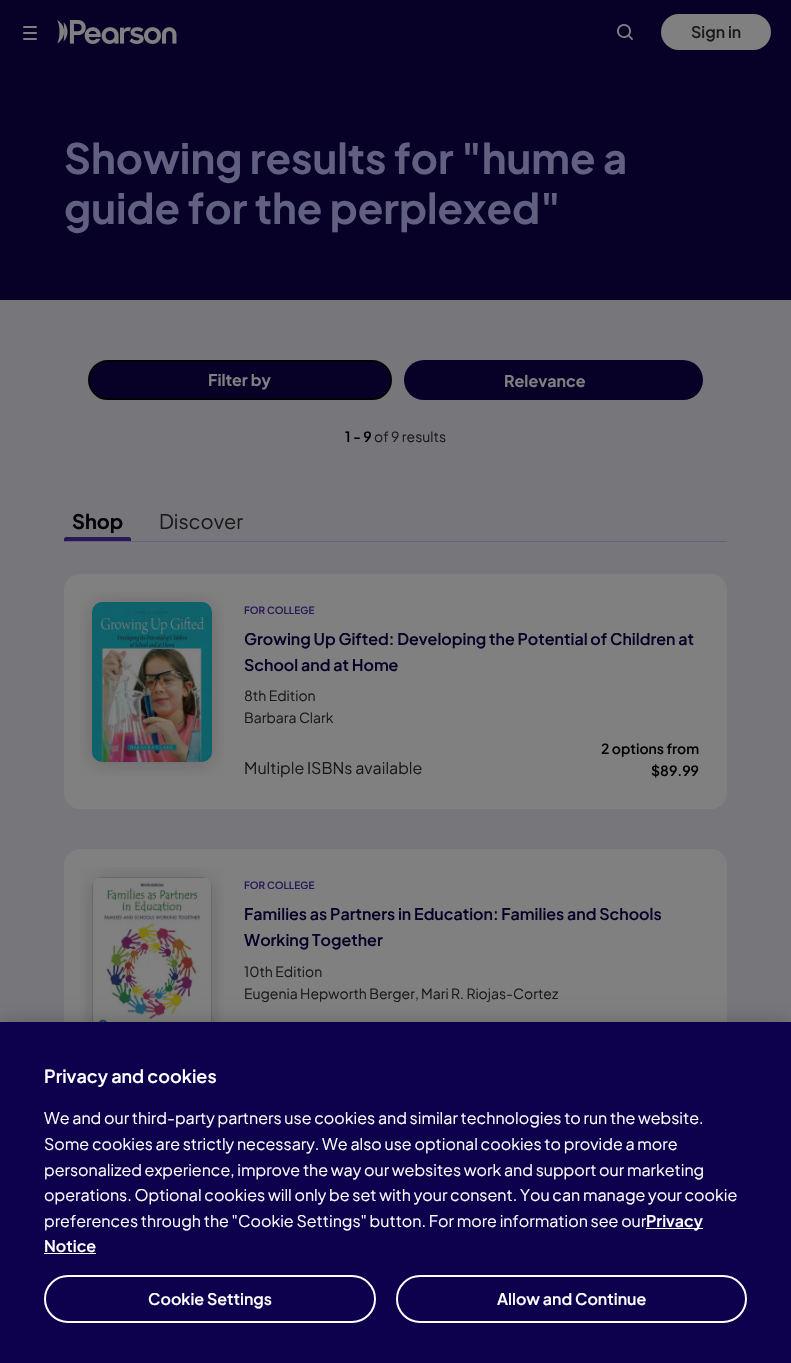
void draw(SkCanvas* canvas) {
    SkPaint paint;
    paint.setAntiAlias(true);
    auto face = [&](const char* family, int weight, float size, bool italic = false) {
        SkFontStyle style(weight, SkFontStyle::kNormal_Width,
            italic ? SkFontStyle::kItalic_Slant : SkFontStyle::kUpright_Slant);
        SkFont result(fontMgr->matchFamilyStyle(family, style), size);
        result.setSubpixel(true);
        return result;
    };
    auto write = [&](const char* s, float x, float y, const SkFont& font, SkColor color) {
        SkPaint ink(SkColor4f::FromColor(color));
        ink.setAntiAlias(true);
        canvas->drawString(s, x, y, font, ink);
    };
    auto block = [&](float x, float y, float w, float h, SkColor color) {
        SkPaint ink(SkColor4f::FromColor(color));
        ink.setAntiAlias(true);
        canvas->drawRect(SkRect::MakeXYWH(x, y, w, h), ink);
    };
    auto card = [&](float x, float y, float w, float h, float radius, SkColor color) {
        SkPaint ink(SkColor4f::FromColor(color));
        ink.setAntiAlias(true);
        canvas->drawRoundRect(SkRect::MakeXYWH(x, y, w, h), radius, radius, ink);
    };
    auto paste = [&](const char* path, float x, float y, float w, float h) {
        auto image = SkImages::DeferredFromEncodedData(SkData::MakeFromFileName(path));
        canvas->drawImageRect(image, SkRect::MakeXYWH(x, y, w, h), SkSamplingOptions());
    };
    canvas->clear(SkColorSetRGB(119, 118, 123));
    block(0, 0, 791, 300, SkColorSetRGB(7, 0, 39));
    card(23, 32, 14, 2, 1, SkColorSetRGB(128, 128, 128));
    card(23, 26, 14, 2, 1, SkColorSetRGB(128, 128, 128));
    card(23, 38, 14, 2, 1, SkColorSetRGB(128, 128, 128));
    paste("pic1.png", 57, 20, 120, 24);
    paste("pic2.png", 617, 24, 16, 16);
    card(661, 14, 110, 36, 18, SkColorSetRGB(128, 128, 128));
    auto kFont1 = face("Plus Jakarta Sans", 600, 16);
    write("Sign in", 691, 38, kFont1, SkColorSetRGB(26, 26, 26));
    auto kFont2 = face("Plus Jakarta Sans", 700, 41.75f);
    write("Showing results for \"hume a", 64, 174, kFont2, SkColorSetRGB(97, 96, 128));
    write("guide for the perplexed\"", 64, 224, kFont2, SkColorSetRGB(97, 96, 128));
    paint.setColor(SkColorSetRGB(7, 0, 39));
    canvas->drawRoundRect(SkRect::MakeXYWH(89, 361, 302, 38), 19, 19, paint);
    paint.setStyle(SkPaint::kStroke_Style);
    paint.setStrokeWidth(2);
    paint.setColor(SkColorSetRGB(3, 3, 5));
    canvas->drawRoundRect(SkRect::MakeXYWH(89, 361, 302, 38), 19, 19, paint);
    auto kFont3 = face("Plus Jakarta Sans", 700, 16);
    write("Filter by", 208, 386, kFont3, SkColorSetRGB(128, 128, 128));
    card(404, 360, 299, 40, 20, SkColorSetRGB(7, 0, 39));
    write("Relevance", 504, 387, kFont3, SkColorSetRGB(128, 128, 128));
    auto kFont4 = face("Plus Jakarta Sans", 600, 14);
    write("1 - 9", 345, 442, kFont4, SkColorSetRGB(3, 3, 5));
    auto kFont5 = face("Plus Jakarta Sans", 400, 14);
    write("of 9 results", 374, 442, kFont5, SkColorSetRGB(26, 26, 26));
    block(64, 541, 663, 1, SkColorSetRGB(97, 96, 128));
    auto kFont6 = face("Plus Jakarta Sans", 700, 20);
    write("Shop", 72, 529, kFont6, SkColorSetRGB(3, 3, 5));
    paint.setStyle(SkPaint::kFill_Style);
    paint.setColor(SkColorSetRGB(41, 23, 86));
    canvas->drawPath(SkPathBuilder().moveTo(66, 537).lineTo(129, 537).cubicTo(130, 537, 131, 538, 131, 539).lineTo(131, 541).lineTo(64, 541).lineTo(64, 539).cubicTo(64, 538, 65, 537, 66, 537).close().detach(), paint);
    auto kFont7 = face("Plus Jakarta Sans", 400, 20);
    write("Discover", 159, 529, kFont7, SkColorSetRGB(26, 26, 26));
    card(64, 574, 663, 235, 16, SkColorSetRGB(128, 128, 128));
    paste("pic3.png", 80, 592, 144, 184);
    auto kFont8 = face("Plus Jakarta Sans", 600, 10);
    write("FOR COLLEGE", 244, 614, kFont8, SkColorSetRGB(41, 23, 86));
    write("Growing Up Gifted: Developing the Potential of Children at", 244, 645, kFont1, SkColorSetRGB(7, 0, 39));
    write("School and at Home", 244, 671, kFont1, SkColorSetRGB(7, 0, 39));
    write("8th Edition", 244, 701, kFont5, SkColorSetRGB(26, 26, 26));
    write("Barbara Clark", 244, 723, kFont5, SkColorSetRGB(26, 26, 26));
    auto kFont9 = face("Plus Jakarta Sans", 400, 16);
    write("Multiple ISBNs available", 244, 774, kFont9, SkColorSetRGB(26, 26, 26));
    write("2 options from", 601, 754, kFont4, SkColorSetRGB(3, 3, 5));
    write("$89.99", 651, 776, kFont4, SkColorSetRGB(3, 3, 5));
    card(64, 849, 663, 236, 16, SkColorSetRGB(128, 128, 128));
    paste("pic4.png", 80, 867, 144, 155);
    write("FOR COLLEGE", 244, 889, kFont8, SkColorSetRGB(41, 23, 86));
    write("Families as Partners in Education: Families and Schools", 244, 920, kFont1, SkColorSetRGB(7, 0, 39));
    write("Working Together", 244, 946, kFont1, SkColorSetRGB(7, 0, 39));
    write("10th Edition", 244, 977, kFont5, SkColorSetRGB(26, 26, 26));
    write("Eugenia Hepworth Berger, Mari R. Riojas-Cortez", 244, 999, kFont5, SkColorSetRGB(26, 26, 26));
    paint.setColor(SkColorSetARGB(51, 0, 0, 0));
    paint.setMaskFilter(SkMaskFilter::MakeBlur(kNormal_SkBlurStyle, 9));
    canvas->drawRect(SkRect::MakeXYWH(0, 1022, 791, 341), paint);
    paint.setMaskFilter(nullptr);
    block(0, 1022, 791, 341, SkColorSetRGB(13, 0, 77));
    auto kFont10 = face("Plus Jakarta Sans", 600, 18);
    write("Privacy and cookies", 44, 1083, kFont10, SK_ColorWHITE);
    write("We and our third-party partners use cookies and similar technologies to run the website.", 44, 1124, kFont9, SK_ColorWHITE);
    write("Some cookies are strictly necessary. We also use optional cookies to provide a more", 44, 1150, kFont9, SK_ColorWHITE);
    write("personalized experience, improve the way our websites work and support our marketing", 44, 1176, kFont9, SK_ColorWHITE);
    write("operations. Optional cookies will only be set with your consent. You can manage your cookie", 44, 1201, kFont9, SK_ColorWHITE);
    write("preferences through the \"Cookie Settings\" button. For more information see our", 44, 1227, kFont9, SK_ColorWHITE);
    block(646, 1228, 57, 1, SkColorSetRGB(254, 254, 254));
    write("Privacy", 646, 1227, kFont1, SK_ColorWHITE);
    write("Notice", 44, 1252, kFont1, SK_ColorWHITE);
    block(44, 1253, 52, 1, SkColorSetRGB(254, 254, 254));
    paint.setStyle(SkPaint::kStroke_Style);
    paint.setColor(SK_ColorWHITE);
    canvas->drawRoundRect(SkRect::MakeXYWH(45, 1276, 330, 46), 23, 23, paint);
    write("Cookie Settings", 148, 1305, kFont1, SK_ColorWHITE);
    canvas->drawRoundRect(SkRect::MakeXYWH(397, 1276, 349, 46), 23, 23, paint);
    write("Allow and Continue", 497, 1305, kFont1, SK_ColorWHITE);
}
